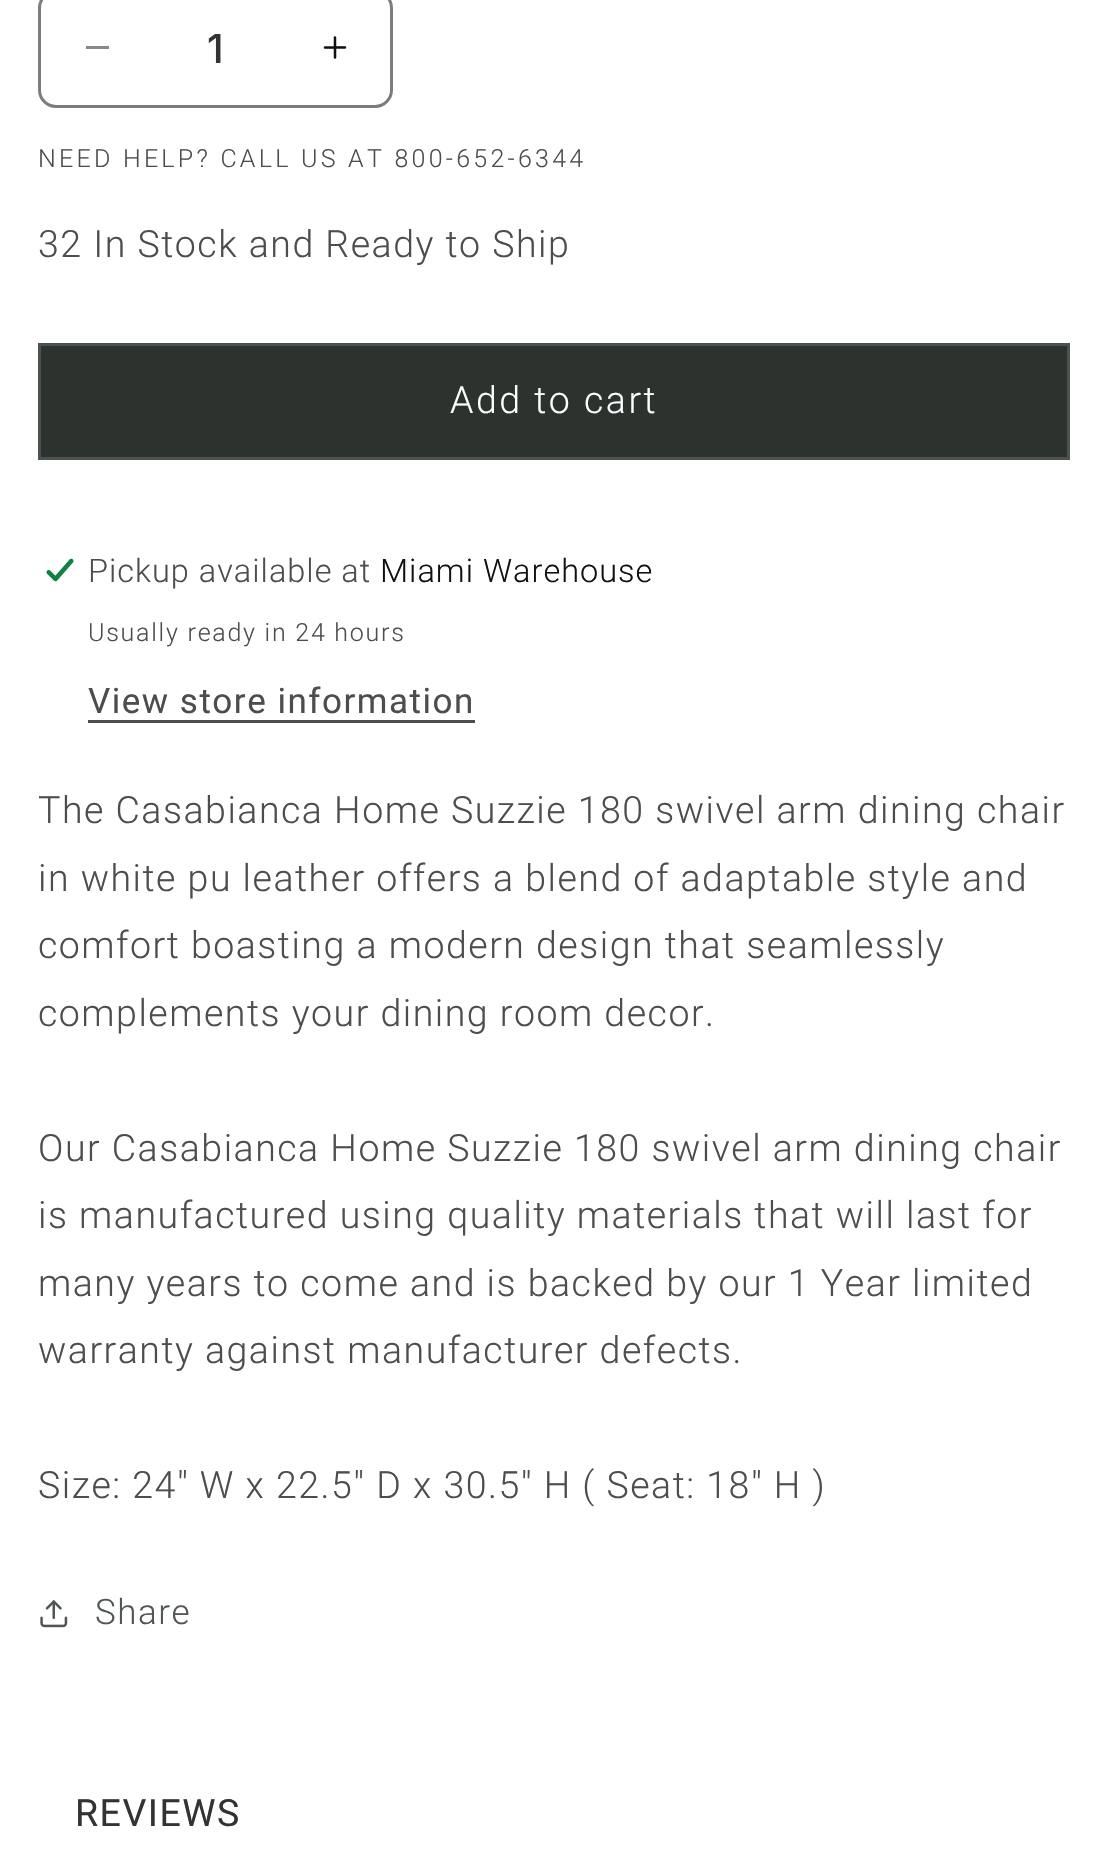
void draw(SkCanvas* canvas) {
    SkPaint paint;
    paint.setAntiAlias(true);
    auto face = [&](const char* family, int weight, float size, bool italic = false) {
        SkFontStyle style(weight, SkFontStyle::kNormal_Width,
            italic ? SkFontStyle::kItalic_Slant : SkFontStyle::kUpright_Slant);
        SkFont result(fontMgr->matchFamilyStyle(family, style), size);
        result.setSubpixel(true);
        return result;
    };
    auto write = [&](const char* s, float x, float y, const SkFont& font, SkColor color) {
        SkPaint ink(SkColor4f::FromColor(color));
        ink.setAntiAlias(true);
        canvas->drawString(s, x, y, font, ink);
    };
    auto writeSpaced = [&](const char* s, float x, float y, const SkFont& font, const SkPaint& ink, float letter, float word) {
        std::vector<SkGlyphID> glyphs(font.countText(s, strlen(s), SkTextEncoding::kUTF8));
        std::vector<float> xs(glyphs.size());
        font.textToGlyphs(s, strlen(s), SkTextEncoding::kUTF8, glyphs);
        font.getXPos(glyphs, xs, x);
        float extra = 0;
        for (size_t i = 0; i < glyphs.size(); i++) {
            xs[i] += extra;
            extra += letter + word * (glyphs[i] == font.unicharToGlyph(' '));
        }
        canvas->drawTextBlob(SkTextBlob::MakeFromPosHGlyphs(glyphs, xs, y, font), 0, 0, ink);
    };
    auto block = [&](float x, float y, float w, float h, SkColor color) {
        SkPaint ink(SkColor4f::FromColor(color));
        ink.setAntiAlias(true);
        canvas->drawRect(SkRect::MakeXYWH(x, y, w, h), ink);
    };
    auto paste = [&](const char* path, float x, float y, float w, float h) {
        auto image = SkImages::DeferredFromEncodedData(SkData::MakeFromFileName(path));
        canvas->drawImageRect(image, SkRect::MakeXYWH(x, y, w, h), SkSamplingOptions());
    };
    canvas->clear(SK_ColorWHITE);
    block(86, 46, 23, 3, SkColorSetRGB(136, 136, 136));
    paste("pic1.png", 323, 36, 24, 23);
    paint.setStyle(SkPaint::kStroke_Style);
    paint.setStrokeWidth(3);
    paint.setColor(SkColorSetRGB(124, 124, 124));
    canvas->drawRoundRect(SkRect::MakeXYWH(39.5f, -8.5f, 352, 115), 16.5f, 16.5f, paint);
    auto kFont1 = face("Inter", 500, 40);
    write("1", 207, 63, kFont1, SkColorSetRGB(51, 51, 51));
    auto kFont2 = face("Roboto", 300, 25);
    paint.setStyle(SkPaint::kFill_Style);
    paint.setColor(SkColorSetRGB(77, 77, 77));
    writeSpaced("NEED HELP? CALL US AT 800-652-6344", 38, 167, kFont2, paint, 3.25f, 0);
    auto kFont3 = face("Roboto", 300, 37.5f);
    writeSpaced("32 In Stock and Ready to Ship", 38, 257, kFont3, paint, 1.5f, 0);
    block(41, 346, 1026, 111, SkColorSetRGB(44, 51, 47));
    paint.setStyle(SkPaint::kStroke_Style);
    paint.setColor(SkColorSetRGB(76, 82, 78));
    canvas->drawRect(SkRect::MakeXYWH(39.5f, 344.5f, 1029, 114), paint);
    paint.setStyle(SkPaint::kFill_Style);
    paint.setColor(SK_ColorWHITE);
    writeSpaced("Add to cart", 450, 413, kFont3, paint, 2.5f, 0);
    paste("pic2.png", 46, 558, 28, 24);
    auto kFont4 = face("Roboto", 300, 32.5f);
    paint.setColor(SkColorSetRGB(77, 77, 77));
    writeSpaced("Pickup available at", 88, 582, kFont4, paint, 1, 0);
    paint.setColor(SkColorSetRGB(17, 17, 17));
    writeSpaced("Miami Warehouse", 380, 582, kFont4, paint, 1, 0);
    paint.setColor(SkColorSetRGB(77, 77, 77));
    writeSpaced("Usually ready in 24 hours", 88, 641, kFont2, paint, 1.75f, 0);
    auto kFont5 = face("Roboto", 400, 35);
    writeSpaced("View store information", 88, 713, kFont5, paint, 1.5f, 0);
    block(88, 720, 387, 3, SkColorSetRGB(77, 77, 77));
    writeSpaced("The Casabianca Home Suzzie 180 swivel arm dining chair", 38, 823, kFont3, paint, 1.5f, 0);
    writeSpaced("in white pu leather offers a blend of adaptable style and", 38, 891, kFont3, paint, 1.5f, 0);
    writeSpaced("comfort boasting a modern design that seamlessly", 38, 958, kFont3, paint, 1.5f, 0);
    writeSpaced("complements your dining room decor.", 38, 1026, kFont3, paint, 1.5f, 0);
    writeSpaced("Our Casabianca Home Suzzie 180 swivel arm dining chair", 38, 1161, kFont3, paint, 1.5f, 0);
    writeSpaced("is manufactured using quality materials that will last for", 38, 1228, kFont3, paint, 1.5f, 0);
    writeSpaced("many years to come and is backed by our 1 Year limited", 38, 1296, kFont3, paint, 1.5f, 0);
    writeSpaced("warranty against manufacturer defects.", 38, 1363, kFont3, paint, 1.5f, 0);
    writeSpaced("Size: 24\" W x 22.5\" D x 30.5\" H ( Seat: 18\" H )", 38, 1498, kFont3, paint, 1.5f, 0);
    paste("pic3.png", 40, 1600, 28, 28);
    auto kFont6 = face("Roboto", 300, 35);
    paint.setColor(SkColorSetRGB(80, 86, 85));
    writeSpaced("Share", 95, 1624, kFont6, paint, 1.5f, 0);
    auto kFont7 = face("Roboto", 400, 37.5f);
    paint.setColor(SkColorSetRGB(51, 51, 51));
    writeSpaced("REVIEWS", 75, 1826, kFont7, paint, 1.5f, 0);
}
